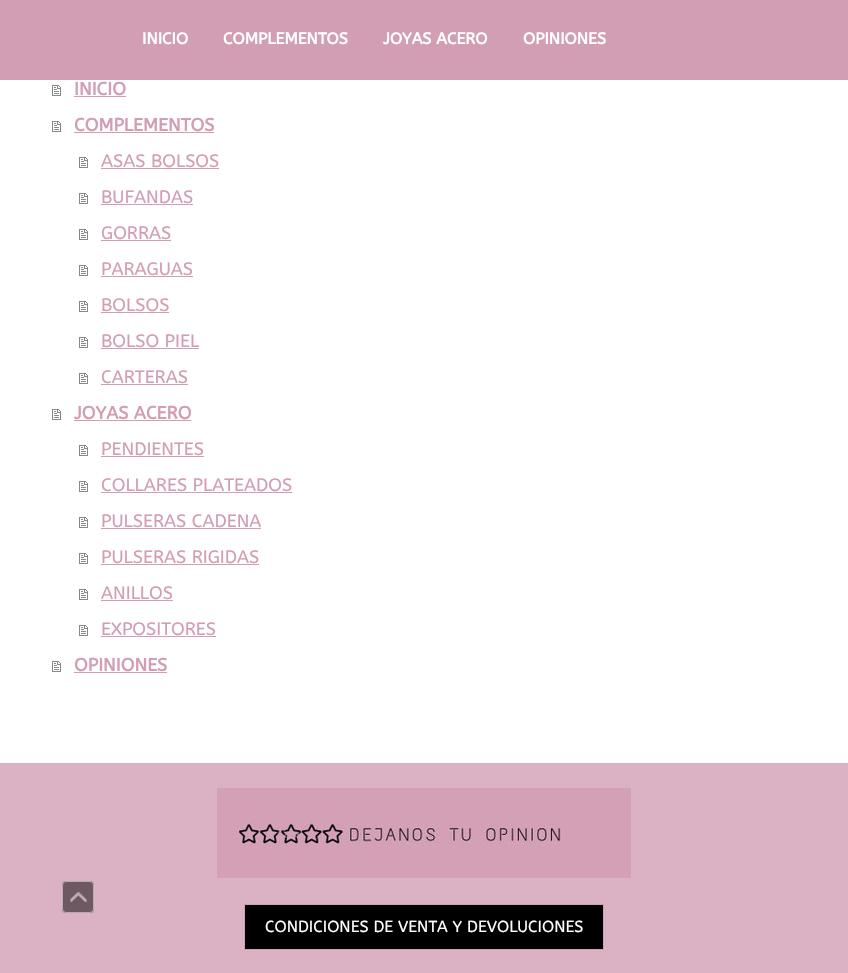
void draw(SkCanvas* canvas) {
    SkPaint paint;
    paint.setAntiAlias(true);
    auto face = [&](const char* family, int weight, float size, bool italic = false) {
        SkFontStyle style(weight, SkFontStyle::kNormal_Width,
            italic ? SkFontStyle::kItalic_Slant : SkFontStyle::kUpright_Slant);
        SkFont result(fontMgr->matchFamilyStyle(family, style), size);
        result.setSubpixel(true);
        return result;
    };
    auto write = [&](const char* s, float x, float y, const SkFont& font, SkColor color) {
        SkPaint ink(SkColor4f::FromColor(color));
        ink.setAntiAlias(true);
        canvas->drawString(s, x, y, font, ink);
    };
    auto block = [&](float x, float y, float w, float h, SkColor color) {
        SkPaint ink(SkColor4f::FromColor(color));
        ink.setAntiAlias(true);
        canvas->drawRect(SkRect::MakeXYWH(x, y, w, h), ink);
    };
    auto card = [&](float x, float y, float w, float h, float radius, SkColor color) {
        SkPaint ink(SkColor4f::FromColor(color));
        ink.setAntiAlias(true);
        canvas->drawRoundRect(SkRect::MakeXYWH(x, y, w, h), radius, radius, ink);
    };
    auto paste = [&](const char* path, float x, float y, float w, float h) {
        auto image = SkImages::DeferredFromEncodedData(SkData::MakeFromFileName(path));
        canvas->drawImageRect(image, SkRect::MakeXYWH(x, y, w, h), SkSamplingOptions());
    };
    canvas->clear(SK_ColorWHITE);
    block(0, 0, 848, 80, SkColorSetRGB(210, 158, 180));
    auto kFont1 = face("ABeeZee", 700, 16);
    write("INICIO", 142, 44, kFont1, SK_ColorWHITE);
    write("COMPLEMENTOS", 223, 44, kFont1, SK_ColorWHITE);
    write("JOYAS ACERO", 383, 44, kFont1, SK_ColorWHITE);
    write("OPINIONES", 523, 44, kFont1, SK_ColorWHITE);
    paste("pic1.png", 52, 85, 9, 11);
    auto kFont2 = face("ABeeZee", 700, 18);
    write("INICIO", 74, 95, kFont2, SkColorSetRGB(210, 158, 180));
    block(74, 96, 52, 1, SkColorSetRGB(210, 158, 180));
    paste("pic1.png", 52, 121, 9, 11);
    write("COMPLEMENTOS", 74, 131, kFont2, SkColorSetRGB(210, 158, 180));
    block(74, 132, 140, 1, SkColorSetRGB(210, 158, 180));
    paste("pic1.png", 79, 157, 9, 11);
    auto kFont3 = face("ABeeZee", 400, 18);
    write("ASAS BOLSOS", 101, 167, kFont3, SkColorSetRGB(210, 158, 180));
    block(101, 168, 118, 1, SkColorSetRGB(210, 158, 180));
    paste("pic1.png", 79, 193, 9, 11);
    write("BUFANDAS", 101, 203, kFont3, SkColorSetRGB(210, 158, 180));
    block(101, 204, 92, 1, SkColorSetRGB(210, 158, 180));
    paste("pic1.png", 79, 229, 9, 11);
    write("GORRAS", 101, 239, kFont3, SkColorSetRGB(210, 158, 180));
    block(101, 240, 70, 1, SkColorSetRGB(210, 158, 180));
    paste("pic1.png", 79, 265, 9, 11);
    write("PARAGUAS", 101, 275, kFont3, SkColorSetRGB(210, 158, 180));
    block(101, 276, 92, 1, SkColorSetRGB(210, 158, 180));
    paste("pic1.png", 79, 301, 9, 11);
    write("BOLSOS", 101, 311, kFont3, SkColorSetRGB(210, 158, 180));
    block(101, 312, 68, 1, SkColorSetRGB(210, 158, 180));
    paste("pic1.png", 79, 337, 9, 11);
    write("BOLSO PIEL", 101, 347, kFont3, SkColorSetRGB(210, 158, 180));
    block(101, 348, 98, 1, SkColorSetRGB(210, 158, 180));
    paste("pic1.png", 79, 373, 9, 11);
    write("CARTERAS", 101, 383, kFont3, SkColorSetRGB(210, 158, 180));
    block(101, 384, 87, 1, SkColorSetRGB(210, 158, 180));
    paste("pic1.png", 52, 409, 9, 11);
    write("JOYAS ACERO", 74, 419, kFont2, SkColorSetRGB(210, 158, 180));
    block(74, 420, 117, 1, SkColorSetRGB(210, 158, 180));
    paste("pic1.png", 79, 445, 9, 11);
    write("PENDIENTES", 101, 455, kFont3, SkColorSetRGB(210, 158, 180));
    block(101, 456, 103, 1, SkColorSetRGB(210, 158, 180));
    paste("pic1.png", 79, 481, 9, 11);
    write("COLLARES PLATEADOS", 101, 491, kFont3, SkColorSetRGB(210, 158, 180));
    block(101, 492, 191, 1, SkColorSetRGB(210, 158, 180));
    paste("pic1.png", 79, 517, 9, 11);
    write("PULSERAS CADENA", 101, 527, kFont3, SkColorSetRGB(210, 158, 180));
    block(101, 528, 160, 1, SkColorSetRGB(210, 158, 180));
    paste("pic1.png", 79, 553, 9, 11);
    write("PULSERAS RIGIDAS", 101, 563, kFont3, SkColorSetRGB(210, 158, 180));
    block(101, 564, 158, 1, SkColorSetRGB(210, 158, 180));
    paste("pic1.png", 79, 589, 9, 11);
    write("ANILLOS", 101, 599, kFont3, SkColorSetRGB(210, 158, 180));
    block(101, 600, 72, 1, SkColorSetRGB(210, 158, 180));
    paste("pic1.png", 79, 625, 9, 11);
    write("EXPOSITORES", 101, 635, kFont3, SkColorSetRGB(210, 158, 180));
    block(101, 636, 115, 1, SkColorSetRGB(210, 158, 180));
    paste("pic1.png", 52, 661, 9, 11);
    write("OPINIONES", 74, 671, kFont2, SkColorSetRGB(210, 158, 180));
    block(74, 672, 93, 1, SkColorSetRGB(210, 158, 180));
    block(0, 763, 848, 210, SkColorSetRGB(219, 178, 195));
    paste("pic2.png", 217, 788, 414, 90);
    paint.setColor(SK_ColorBLACK);
    canvas->drawRect(SkRect::MakeXYWH(244.5f, 904.5f, 359, 45), paint);
    paint.setStyle(SkPaint::kStroke_Style);
    paint.setStrokeWidth(1);
    paint.setColor(SkColorSetRGB(210, 158, 180));
    canvas->drawRect(SkRect::MakeXYWH(244.5f, 904.5f, 359, 45), paint);
    auto kFont4 = face("ABeeZee", 400, 16);
    write("CONDICIONES DE VENTA Y DEVOLUCIONES", 265, 932, kFont4, SK_ColorWHITE);
    card(62, 881, 32, 32, 4, SkColorSetRGB(110, 89, 98));
    paint.setColor(SkColorSetARGB(128, 255, 255, 255));
    canvas->drawRoundRect(SkRect::MakeXYWH(62.5f, 881.5f, 31, 31), 3.5f, 3.5f, paint);
    paste("pic3.png", 70, 892, 17, 10);
}
